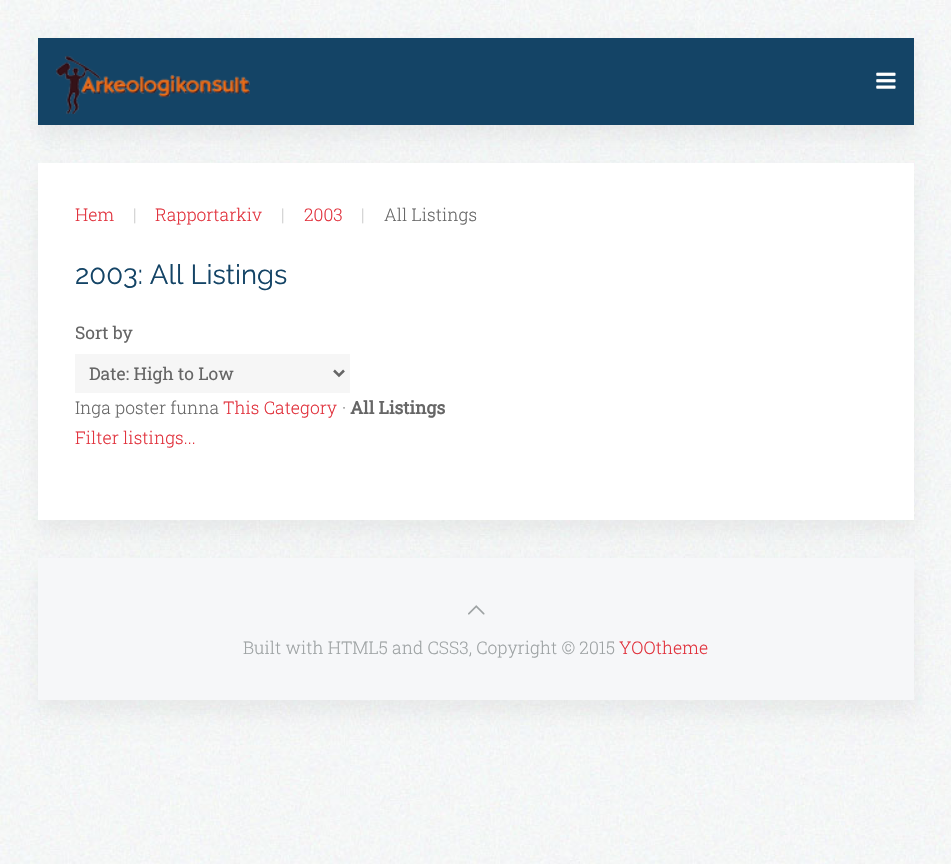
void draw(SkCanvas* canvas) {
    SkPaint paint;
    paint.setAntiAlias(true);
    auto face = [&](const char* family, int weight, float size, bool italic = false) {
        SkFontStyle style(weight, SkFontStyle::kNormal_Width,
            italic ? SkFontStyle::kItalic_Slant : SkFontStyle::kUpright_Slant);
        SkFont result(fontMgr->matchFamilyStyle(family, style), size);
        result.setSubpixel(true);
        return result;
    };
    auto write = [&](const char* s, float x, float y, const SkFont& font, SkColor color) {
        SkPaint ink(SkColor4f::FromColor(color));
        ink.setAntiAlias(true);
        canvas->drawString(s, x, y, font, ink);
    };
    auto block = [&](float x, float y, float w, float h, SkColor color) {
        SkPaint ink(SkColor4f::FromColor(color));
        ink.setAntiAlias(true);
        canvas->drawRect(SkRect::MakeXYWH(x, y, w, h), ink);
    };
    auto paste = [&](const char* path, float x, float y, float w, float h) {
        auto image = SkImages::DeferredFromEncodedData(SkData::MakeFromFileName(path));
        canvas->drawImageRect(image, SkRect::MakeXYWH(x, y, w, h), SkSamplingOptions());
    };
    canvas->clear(SK_ColorWHITE);
    paste("pic1.png", 0, 0, 951, 864);
    paint.setColor(SkColorSetARGB(13, 0, 0, 0));
    paint.setMaskFilter(SkMaskFilter::MakeBlur(kNormal_SkBlurStyle, 9.5f));
    canvas->drawRect(SkRect::MakeXYWH(38, 50, 876, 88), paint);
    paint.setMaskFilter(nullptr);
    block(38, 38, 876, 87, SkColorSetRGB(20, 68, 102));
    paste("pic2.png", 56, 56, 194, 58);
    paste("pic3.png", 876, 72, 20, 17);
    paint.setMaskFilter(SkMaskFilter::MakeBlur(kNormal_SkBlurStyle, 9.5f));
    canvas->drawRect(SkRect::MakeXYWH(38, 175, 876, 358), paint);
    paint.setMaskFilter(nullptr);
    block(38, 163, 876, 357, SK_ColorWHITE);
    auto kFont1 = face("Roboto Slab", 300, 17.5f);
    write("Hem", 75, 221, kFont1, SkColorSetRGB(225, 48, 59));
    write("|", 133, 221, kFont1, SkColorSetRGB(204, 204, 204));
    write("Rapportarkiv", 155, 221, kFont1, SkColorSetRGB(225, 48, 59));
    write("|", 281, 221, kFont1, SkColorSetRGB(204, 204, 204));
    write("2003", 304, 221, kFont1, SkColorSetRGB(225, 48, 59));
    write("|", 361, 221, kFont1, SkColorSetRGB(204, 204, 204));
    write("All Listings", 384, 221, kFont1, SkColorSetRGB(102, 102, 102));
    auto kFont2 = face("Raleway", 400, 27.5f);
    write("2003: All Listings", 75, 284, kFont2, SkColorSetRGB(20, 68, 102));
    auto kFont3 = face("Roboto Slab", 400, 17.5f);
    write("Sort by", 75, 339, kFont3, SkColorSetRGB(102, 102, 102));
    block(75, 354, 275, 39, SkColorSetRGB(246, 246, 246));
    paint.setStyle(SkPaint::kStroke_Style);
    paint.setStrokeWidth(2.5f);
    paint.setColor(SkColorSetRGB(102, 102, 102));
    canvas->drawPath(SkPathBuilder().moveTo(334, 370.5f).lineTo(339, 375.5f).lineTo(344, 370.5f).detach(), paint);
    write("Date: High to Low", 89, 380, kFont3, SkColorSetRGB(102, 102, 102));
    write("Inga poster funna", 75, 414, kFont1, SkColorSetRGB(102, 102, 102));
    write("This Category", 223, 414, kFont1, SkColorSetRGB(225, 48, 59));
    write("·", 342, 414, kFont1, SkColorSetRGB(102, 102, 102));
    auto kFont4 = face("Roboto Slab", 700, 17.5f);
    write("All Listings", 350, 414, kFont4, SkColorSetRGB(102, 102, 102));
    write("Filter listings...", 75, 444, kFont1, SkColorSetRGB(225, 48, 59));
    paint.setStyle(SkPaint::kFill_Style);
    paint.setColor(SkColorSetARGB(13, 0, 0, 0));
    paint.setMaskFilter(SkMaskFilter::MakeBlur(kNormal_SkBlurStyle, 9.5f));
    canvas->drawRect(SkRect::MakeXYWH(38, 570, 876, 143), paint);
    paint.setMaskFilter(nullptr);
    block(38, 558, 876, 142, SkColorSetRGB(246, 247, 249));
    paste("pic4.png", 468, 605, 17, 10);
    write("Built with HTML5 and CSS3, Copyright © 2015", 243, 654, kFont1, SkColorSetRGB(157, 162, 163));
    write("YOOtheme", 619, 654, kFont1, SkColorSetRGB(225, 48, 59));
}
